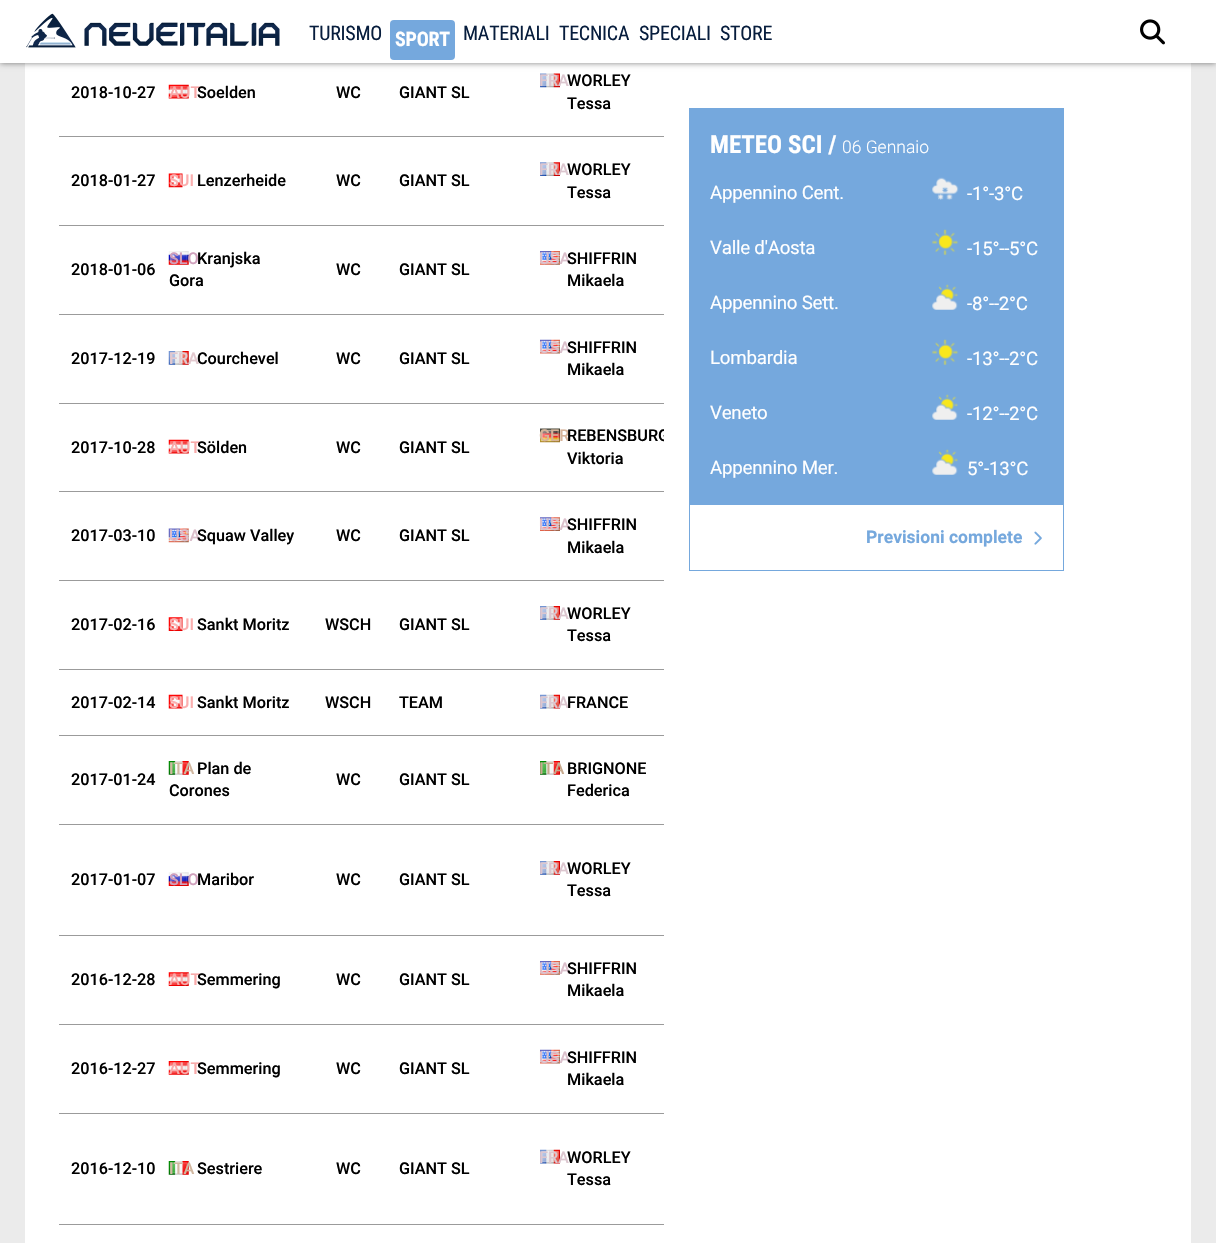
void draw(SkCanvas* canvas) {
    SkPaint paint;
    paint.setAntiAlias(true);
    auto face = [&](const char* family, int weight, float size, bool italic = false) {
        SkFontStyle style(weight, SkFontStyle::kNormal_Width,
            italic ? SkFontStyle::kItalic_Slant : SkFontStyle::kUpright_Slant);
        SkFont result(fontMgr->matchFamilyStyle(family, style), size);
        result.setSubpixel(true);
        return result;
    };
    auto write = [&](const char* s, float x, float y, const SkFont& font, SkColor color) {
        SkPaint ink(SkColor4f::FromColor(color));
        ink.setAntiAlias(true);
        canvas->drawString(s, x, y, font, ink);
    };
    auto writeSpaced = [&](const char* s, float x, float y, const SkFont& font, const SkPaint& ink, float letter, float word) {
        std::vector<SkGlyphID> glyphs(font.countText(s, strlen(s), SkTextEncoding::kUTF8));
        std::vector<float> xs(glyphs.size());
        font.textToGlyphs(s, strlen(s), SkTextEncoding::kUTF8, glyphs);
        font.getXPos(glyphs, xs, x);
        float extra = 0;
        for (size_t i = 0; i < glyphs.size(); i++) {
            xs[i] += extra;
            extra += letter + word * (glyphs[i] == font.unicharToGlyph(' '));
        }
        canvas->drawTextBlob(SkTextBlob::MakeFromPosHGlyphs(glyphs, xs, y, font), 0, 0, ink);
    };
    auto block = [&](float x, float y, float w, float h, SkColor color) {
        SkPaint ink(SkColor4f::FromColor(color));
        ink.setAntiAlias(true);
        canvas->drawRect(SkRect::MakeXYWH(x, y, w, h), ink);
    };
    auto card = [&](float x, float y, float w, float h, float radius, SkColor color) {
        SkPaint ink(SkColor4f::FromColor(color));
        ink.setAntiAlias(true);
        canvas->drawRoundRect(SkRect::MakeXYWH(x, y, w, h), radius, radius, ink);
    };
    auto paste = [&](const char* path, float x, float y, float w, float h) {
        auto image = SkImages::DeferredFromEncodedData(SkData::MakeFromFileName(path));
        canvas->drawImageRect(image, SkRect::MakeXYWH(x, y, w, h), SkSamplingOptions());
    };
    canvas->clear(SkColorSetRGB(235, 235, 235));
    block(25, 63, 1166, 1180, SK_ColorWHITE);
    paint.setColor(SkColorSetARGB(128, 0, 0, 0));
    paint.setMaskFilter(SkMaskFilter::MakeBlur(kNormal_SkBlurStyle, 3));
    canvas->drawRect(SkRect::MakeXYWH(0, 0, 1216, 63), paint);
    paint.setMaskFilter(nullptr);
    block(0, 0, 1216, 63, SK_ColorWHITE);
    paste("pic1.png", 26, 13, 254, 35);
    auto kFont1 = face("Roboto Condensed", 400, 20);
    paint.setColor(SkColorSetRGB(7, 29, 61));
    writeSpaced("TURISMO", 309, 40, kFont1, paint, -0.25f, 0);
    card(390, 20, 65, 40, 4, SkColorSetRGB(117, 168, 221));
    auto kFont2 = face("Roboto Condensed", 700, 20);
    paint.setColor(SK_ColorWHITE);
    writeSpaced("SPORT", 395, 46, kFont2, paint, -0.25f, 0);
    paint.setColor(SkColorSetRGB(7, 29, 61));
    writeSpaced("MATERIALI", 463, 40, kFont1, paint, -0.25f, 0);
    writeSpaced("TECNICA", 559, 40, kFont1, paint, -0.25f, 0);
    writeSpaced("SPECIALI", 639, 40, kFont1, paint, -0.25f, 0);
    writeSpaced("STORE", 720, 40, kFont1, paint, -0.25f, 0);
    paste("pic2.png", 1140, 19, 25, 26);
    block(59, 136, 605, 1, SkColorSetRGB(155, 155, 155));
    auto kFont3 = face("Roboto", 500, 16.25f);
    write("2018-10-27", 71, 98, kFont3, SK_ColorBLACK);
    paste("pic3.png", 168, 84, 21, 15);
    write("AUT", 169, 98, kFont3, SkColorSetRGB(248, 169, 169));
    write("Soelden", 197, 98, kFont3, SK_ColorBLACK);
    write("WC", 336, 98, kFont3, SK_ColorBLACK);
    write("GIANT SL", 399, 98, kFont3, SK_ColorBLACK);
    paste("pic4.png", 540, 73, 20, 15);
    write("FRA", 539, 86, kFont3, SkColorSetRGB(220, 198, 207));
    write("WORLEY", 567, 86, kFont3, SK_ColorBLACK);
    write("Tessa", 567, 109, kFont3, SK_ColorBLACK);
    block(59, 225, 605, 1, SkColorSetRGB(155, 155, 155));
    write("2018-01-27", 71, 186, kFont3, SK_ColorBLACK);
    paste("pic5.png", 168, 173, 15, 15);
    write("SUI", 169, 186, kFont3, SkColorSetRGB(251, 175, 175));
    write("Lenzerheide", 197, 186, kFont3, SK_ColorBLACK);
    write("WC", 336, 186, kFont3, SK_ColorBLACK);
    write("GIANT SL", 399, 186, kFont3, SK_ColorBLACK);
    paste("pic6.png", 540, 162, 20, 14);
    write("FRA", 539, 175, kFont3, SkColorSetRGB(220, 198, 207));
    write("WORLEY", 567, 175, kFont3, SK_ColorBLACK);
    write("Tessa", 567, 198, kFont3, SK_ColorBLACK);
    block(59, 314, 605, 1, SkColorSetRGB(155, 155, 155));
    write("2018-01-06", 71, 275, kFont3, SK_ColorBLACK);
    paste("pic7.png", 168, 251, 21, 14);
    write("SLO", 169, 264, kFont3, SkColorSetRGB(208, 160, 188));
    write("Kranjska", 197, 264, kFont3, SK_ColorBLACK);
    write("Gora", 169, 286, kFont3, SK_ColorBLACK);
    write("WC", 336, 275, kFont3, SK_ColorBLACK);
    write("GIANT SL", 399, 275, kFont3, SK_ColorBLACK);
    paste("pic8.png", 540, 251, 20, 14);
    write("USA", 539, 264, kFont3, SkColorSetRGB(219, 191, 203));
    write("SHIFFRIN", 567, 264, kFont3, SK_ColorBLACK);
    write("Mikaela", 567, 286, kFont3, SK_ColorBLACK);
    block(59, 403, 605, 1, SkColorSetRGB(155, 155, 155));
    write("2017-12-19", 71, 364, kFont3, SK_ColorBLACK);
    paste("pic9.png", 168, 351, 21, 14);
    write("FRA", 169, 364, kFont3, SkColorSetRGB(226, 200, 206));
    write("Courchevel", 197, 364, kFont3, SK_ColorBLACK);
    write("WC", 336, 364, kFont3, SK_ColorBLACK);
    write("GIANT SL", 399, 364, kFont3, SK_ColorBLACK);
    paste("pic10.png", 540, 339, 20, 15);
    write("USA", 539, 353, kFont3, SkColorSetRGB(219, 191, 203));
    write("SHIFFRIN", 567, 353, kFont3, SK_ColorBLACK);
    write("Mikaela", 567, 375, kFont3, SK_ColorBLACK);
    block(59, 491, 605, 1, SkColorSetRGB(155, 155, 155));
    write("2017-10-28", 71, 453, kFont3, SK_ColorBLACK);
    paste("pic11.png", 168, 439, 21, 15);
    write("AUT", 169, 453, kFont3, SkColorSetRGB(248, 169, 169));
    write("Sölden", 197, 453, kFont3, SK_ColorBLACK);
    write("WC", 336, 453, kFont3, SK_ColorBLACK);
    write("GIANT SL", 399, 453, kFont3, SK_ColorBLACK);
    paste("pic12.png", 540, 428, 20, 15);
    write("GER", 539, 441, kFont3, SkColorSetRGB(214, 179, 153));
    canvas->save();
    canvas->clipRect(SkRect::MakeXYWH(59, 0, 605, 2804));
    write("REBENSBURG", 567, 441, kFont3, SK_ColorBLACK);
    canvas->restore();
    write("Viktoria", 567, 464, kFont3, SK_ColorBLACK);
    block(59, 580, 605, 1, SkColorSetRGB(155, 155, 155));
    write("2017-03-10", 71, 541, kFont3, SK_ColorBLACK);
    paste("pic13.png", 168, 528, 21, 15);
    write("USA", 169, 541, kFont3, SkColorSetRGB(219, 191, 203));
    write("Squaw Valley", 197, 541, kFont3, SK_ColorBLACK);
    write("WC", 336, 541, kFont3, SK_ColorBLACK);
    write("GIANT SL", 399, 541, kFont3, SK_ColorBLACK);
    paste("pic14.png", 540, 517, 20, 14);
    write("USA", 539, 530, kFont3, SkColorSetRGB(219, 191, 203));
    write("SHIFFRIN", 567, 530, kFont3, SK_ColorBLACK);
    write("Mikaela", 567, 553, kFont3, SK_ColorBLACK);
    block(59, 669, 605, 1, SkColorSetRGB(155, 155, 155));
    write("2017-02-16", 71, 630, kFont3, SK_ColorBLACK);
    paste("pic15.png", 168, 617, 15, 14);
    write("SUI", 169, 630, kFont3, SkColorSetRGB(251, 175, 175));
    write("Sankt Moritz", 197, 630, kFont3, SK_ColorBLACK);
    write("WSCH", 325, 630, kFont3, SK_ColorBLACK);
    write("GIANT SL", 399, 630, kFont3, SK_ColorBLACK);
    paste("pic16.png", 540, 606, 20, 14);
    write("FRA", 539, 619, kFont3, SkColorSetRGB(220, 198, 207));
    write("WORLEY", 567, 619, kFont3, SK_ColorBLACK);
    write("Tessa", 567, 641, kFont3, SK_ColorBLACK);
    block(59, 735, 605, 1, SkColorSetRGB(155, 155, 155));
    write("2017-02-14", 71, 708, kFont3, SK_ColorBLACK);
    paste("pic17.png", 168, 694, 15, 15);
    write("SUI", 169, 708, kFont3, SkColorSetRGB(251, 175, 175));
    write("Sankt Moritz", 197, 708, kFont3, SK_ColorBLACK);
    write("WSCH", 325, 708, kFont3, SK_ColorBLACK);
    write("TEAM", 399, 708, kFont3, SK_ColorBLACK);
    paste("pic18.png", 540, 694, 20, 15);
    write("FRA", 539, 708, kFont3, SkColorSetRGB(220, 198, 207));
    write("FRANCE", 567, 708, kFont3, SK_ColorBLACK);
    block(59, 824, 605, 1, SkColorSetRGB(155, 155, 155));
    write("2017-01-24", 71, 785, kFont3, SK_ColorBLACK);
    paste("pic19.png", 168, 761, 21, 14);
    write("ITA", 169, 774, kFont3, SkColorSetRGB(209, 183, 160));
    write("Plan de", 197, 774, kFont3, SK_ColorBLACK);
    write("Corones", 169, 796, kFont3, SK_ColorBLACK);
    write("WC", 336, 785, kFont3, SK_ColorBLACK);
    write("GIANT SL", 399, 785, kFont3, SK_ColorBLACK);
    paste("pic20.png", 540, 761, 20, 14);
    write("ITA", 539, 774, kFont3, SkColorSetRGB(199, 169, 142));
    write("BRIGNONE", 567, 774, kFont3, SK_ColorBLACK);
    write("Federica", 567, 796, kFont3, SK_ColorBLACK);
    block(59, 935, 605, 1, SkColorSetRGB(155, 155, 155));
    write("2017-01-07", 71, 885, kFont3, SK_ColorBLACK);
    paste("pic21.png", 168, 872, 21, 14);
    write("SLO", 169, 885, kFont3, SkColorSetRGB(208, 160, 188));
    write("Maribor", 197, 885, kFont3, SK_ColorBLACK);
    write("WC", 336, 885, kFont3, SK_ColorBLACK);
    write("GIANT SL", 399, 885, kFont3, SK_ColorBLACK);
    paste("pic16.png", 540, 861, 20, 14);
    write("FRA", 539, 874, kFont3, SkColorSetRGB(220, 198, 207));
    write("WORLEY", 567, 874, kFont3, SK_ColorBLACK);
    write("Tessa", 567, 896, kFont3, SK_ColorBLACK);
    block(59, 1024, 605, 1, SkColorSetRGB(155, 155, 155));
    write("2016-12-28", 71, 985, kFont3, SK_ColorBLACK);
    paste("pic22.png", 168, 972, 21, 14);
    write("AUT", 169, 985, kFont3, SkColorSetRGB(248, 169, 169));
    write("Semmering", 197, 985, kFont3, SK_ColorBLACK);
    write("WC", 336, 985, kFont3, SK_ColorBLACK);
    write("GIANT SL", 399, 985, kFont3, SK_ColorBLACK);
    paste("pic8.png", 540, 961, 20, 14);
    write("USA", 539, 974, kFont3, SkColorSetRGB(219, 191, 203));
    write("SHIFFRIN", 567, 974, kFont3, SK_ColorBLACK);
    write("Mikaela", 567, 996, kFont3, SK_ColorBLACK);
    block(59, 1113, 605, 1, SkColorSetRGB(155, 155, 155));
    write("2016-12-27", 71, 1074, kFont3, SK_ColorBLACK);
    paste("pic23.png", 168, 1061, 21, 14);
    write("AUT", 169, 1074, kFont3, SkColorSetRGB(248, 169, 169));
    write("Semmering", 197, 1074, kFont3, SK_ColorBLACK);
    write("WC", 336, 1074, kFont3, SK_ColorBLACK);
    write("GIANT SL", 399, 1074, kFont3, SK_ColorBLACK);
    paste("pic10.png", 540, 1049, 20, 15);
    write("USA", 539, 1063, kFont3, SkColorSetRGB(219, 191, 203));
    write("SHIFFRIN", 567, 1063, kFont3, SK_ColorBLACK);
    write("Mikaela", 567, 1085, kFont3, SK_ColorBLACK);
    block(59, 1224, 605, 1, SkColorSetRGB(155, 155, 155));
    write("2016-12-10", 71, 1174, kFont3, SK_ColorBLACK);
    paste("pic19.png", 168, 1161, 21, 14);
    write("ITA", 169, 1174, kFont3, SkColorSetRGB(209, 183, 160));
    write("Sestriere", 197, 1174, kFont3, SK_ColorBLACK);
    write("WC", 336, 1174, kFont3, SK_ColorBLACK);
    write("GIANT SL", 399, 1174, kFont3, SK_ColorBLACK);
    paste("pic18.png", 540, 1149, 20, 15);
    write("FRA", 539, 1163, kFont3, SkColorSetRGB(220, 198, 207));
    write("WORLEY", 567, 1163, kFont3, SK_ColorBLACK);
    write("Tessa", 567, 1185, kFont3, SK_ColorBLACK);
    block(689, 108, 375, 463, SkColorSetRGB(117, 168, 221));
    auto kFont4 = face("Roboto Condensed", 700, 25);
    write("METEO SCI /", 710, 153, kFont4, SK_ColorWHITE);
    auto kFont5 = face("Roboto", 300, 17.5f);
    write("06 Gennaio", 842, 153, kFont5, SK_ColorWHITE);
    auto kFont6 = face("Roboto", 400, 18.75f);
    paint.setColor(SK_ColorWHITE);
    writeSpaced("Appennino Cent.", 710, 199, kFont6, paint, -0.25f, 0);
    paste("pic24.png", 932, 177, 27, 23);
    writeSpaced("-1°-3°C", 967, 200, kFont6, paint, -0.25f, 0);
    writeSpaced("Valle d'Aosta", 710, 254, kFont6, paint, -0.25f, 0);
    paste("pic25.png", 932, 229, 27, 26);
    writeSpaced("-15°--5°C", 967, 255, kFont6, paint, -0.25f, 0);
    writeSpaced("Appennino Sett.", 710, 309, kFont6, paint, -0.25f, 0);
    paste("pic26.png", 932, 284, 26, 26);
    writeSpaced("-8°--2°C", 967, 310, kFont6, paint, -0.25f, 0);
    writeSpaced("Lombardia", 710, 364, kFont6, paint, -0.25f, 0);
    paste("pic25.png", 932, 339, 27, 26);
    writeSpaced("-13°--2°C", 967, 365, kFont6, paint, -0.25f, 0);
    writeSpaced("Veneto", 710, 419, kFont6, paint, -0.25f, 0);
    paste("pic26.png", 932, 394, 26, 26);
    writeSpaced("-12°--2°C", 967, 420, kFont6, paint, -0.25f, 0);
    writeSpaced("Appennino Mer.", 710, 474, kFont6, paint, -0.25f, 0);
    paste("pic27.png", 932, 449, 26, 26);
    writeSpaced("5°-13°C", 967, 475, kFont6, paint, -0.25f, 0);
    block(690, 505, 373, 65, SK_ColorWHITE);
    auto kFont7 = face("Roboto", 700, 17.5f);
    write("Previsioni complete", 866, 543, kFont7, SkColorSetRGB(117, 168, 221));
    paste("pic28.png", 1034, 531, 8, 14);
}
